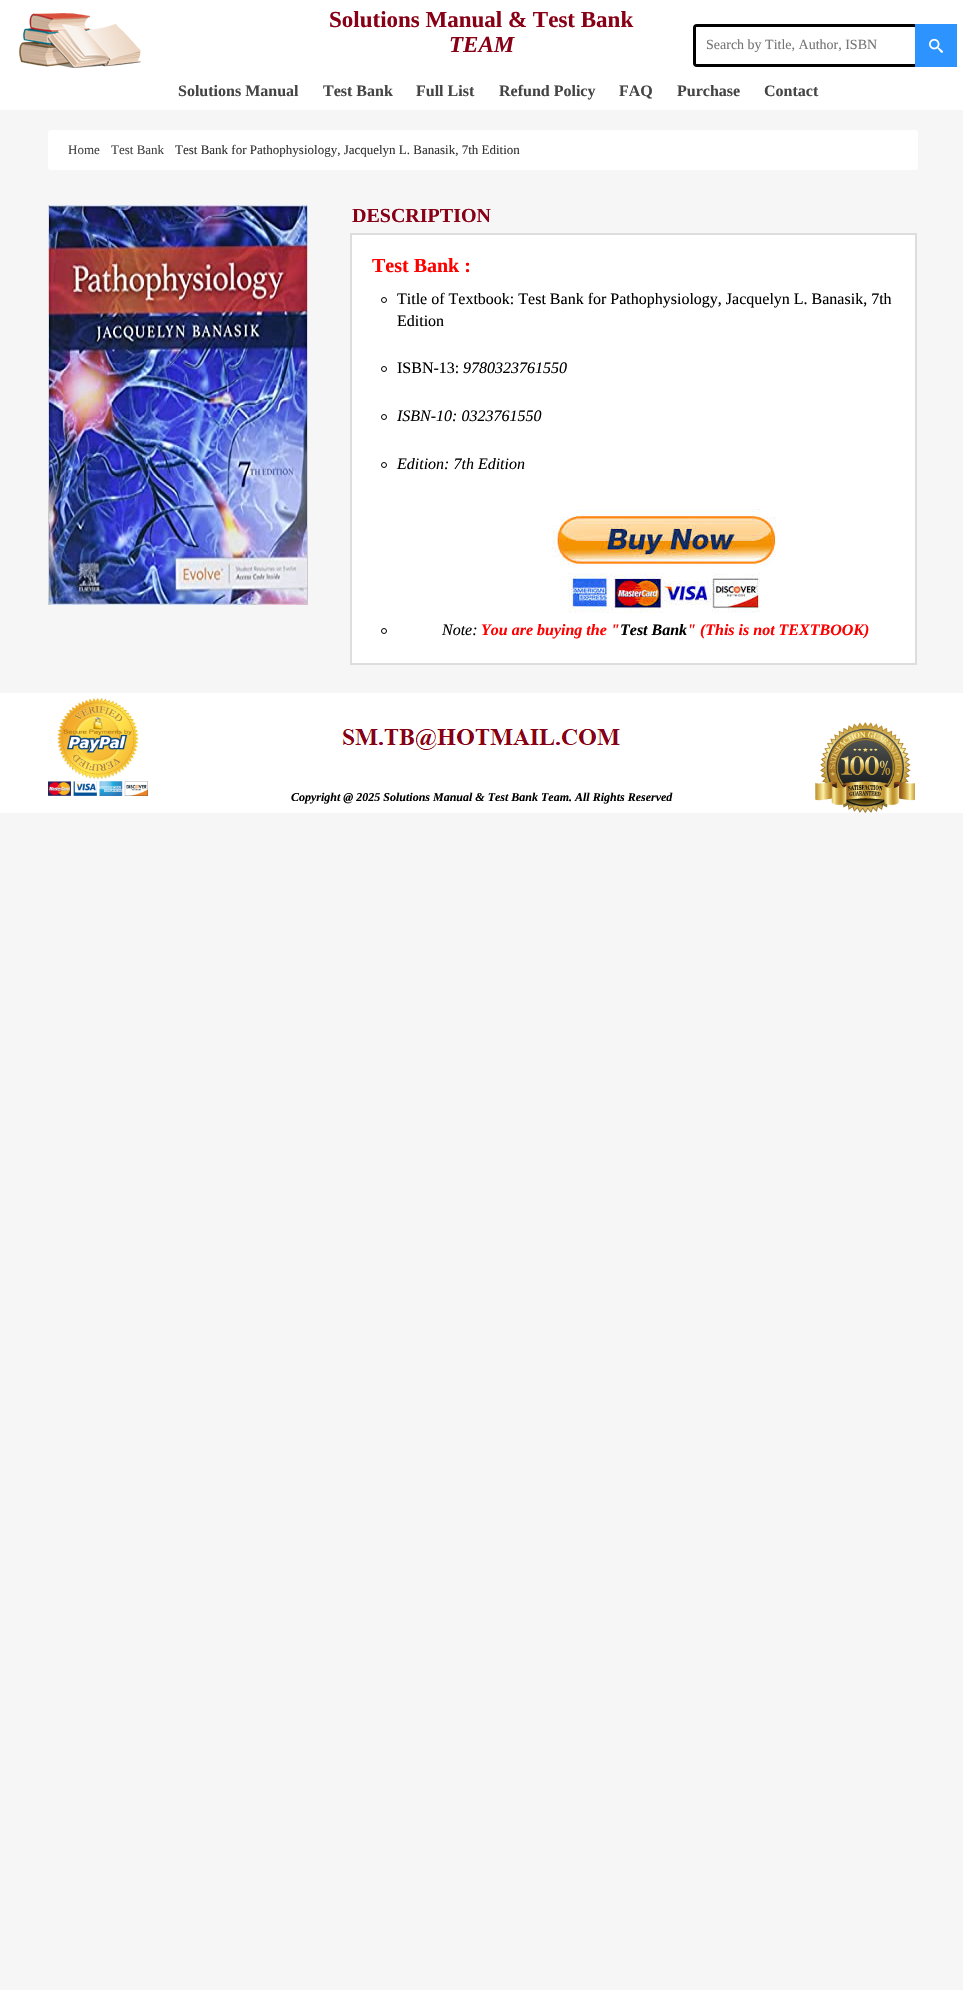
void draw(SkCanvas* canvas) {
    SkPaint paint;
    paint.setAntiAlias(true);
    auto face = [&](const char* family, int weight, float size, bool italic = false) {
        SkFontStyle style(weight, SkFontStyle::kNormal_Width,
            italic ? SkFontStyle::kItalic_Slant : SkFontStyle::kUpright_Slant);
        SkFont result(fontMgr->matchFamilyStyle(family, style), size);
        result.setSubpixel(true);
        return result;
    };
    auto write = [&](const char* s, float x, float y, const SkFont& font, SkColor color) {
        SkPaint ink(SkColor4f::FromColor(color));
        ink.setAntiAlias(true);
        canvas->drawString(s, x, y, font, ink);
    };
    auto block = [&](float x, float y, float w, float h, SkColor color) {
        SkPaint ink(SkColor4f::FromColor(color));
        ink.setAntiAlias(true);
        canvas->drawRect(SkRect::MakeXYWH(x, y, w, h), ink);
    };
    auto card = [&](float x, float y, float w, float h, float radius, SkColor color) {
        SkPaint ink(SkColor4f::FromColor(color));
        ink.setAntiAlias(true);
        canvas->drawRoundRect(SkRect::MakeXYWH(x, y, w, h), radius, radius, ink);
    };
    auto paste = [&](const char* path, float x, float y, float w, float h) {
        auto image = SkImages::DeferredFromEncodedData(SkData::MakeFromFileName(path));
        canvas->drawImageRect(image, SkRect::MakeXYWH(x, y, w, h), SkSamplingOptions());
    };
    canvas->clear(SkColorSetRGB(246, 246, 246));
    block(0, 0, 963, 110, SK_ColorWHITE);
    paste("pic1.png", 19, 13, 122, 55);
    auto kFont1 = face("Liberation Serif", 700, 23);
    write("Solutions Manual & Test Bank", 329, 27, kFont1, SkColorSetRGB(136, 0, 21));
    auto kFont2 = face("Liberation Serif", 700, 23, true);
    write("TEAM", 449, 52, kFont2, SkColorSetRGB(136, 0, 21));
    paint.setStyle(SkPaint::kStroke_Style);
    paint.setStrokeWidth(3);
    paint.setColor(SK_ColorBLACK);
    canvas->drawRoundRect(SkRect::MakeXYWH(694.5f, 25.5f, 222, 40), 2.5f, 2.5f, paint);
    card(696, 27, 219, 37, 1, SK_ColorWHITE);
    auto kFont3 = face("Liberation Serif", 400, 14);
    write("Search by Title, Author, ISBN", 706, 49, kFont3, SkColorSetRGB(117, 117, 117));
    block(915, 24, 42, 43, SkColorSetRGB(45, 147, 255));
    paste("pic2.png", 929, 38, 14, 15);
    auto kFont4 = face("Liberation Serif", 700, 16);
    write("Solutions Manual", 178, 96, kFont4, SkColorSetRGB(69, 69, 69));
    write("Test Bank", 323, 96, kFont4, SkColorSetRGB(69, 69, 69));
    write("Full List", 416, 96, kFont4, SkColorSetRGB(69, 69, 69));
    write("Refund Policy", 499, 96, kFont4, SkColorSetRGB(69, 69, 69));
    write("FAQ", 619, 96, kFont4, SkColorSetRGB(69, 69, 69));
    write("Purchase", 677, 96, kFont4, SkColorSetRGB(69, 69, 69));
    write("Contact", 764, 96, kFont4, SkColorSetRGB(69, 69, 69));
    card(48, 130, 870, 40, 3, SK_ColorWHITE);
    auto kFont5 = face("Liberation Serif", 400, 13);
    write("Home", 68, 154, kFont5, SkColorSetRGB(69, 69, 69));
    write("Test Bank", 111, 154, kFont5, SkColorSetRGB(69, 69, 69));
    write("Test Bank for Pathophysiology, Jacquelyn L. Banasik, 7th Edition", 175, 154, kFont5, SkColorSetRGB(51, 51, 51));
    paste("pic3.png", 48, 205, 260, 400);
    auto kFont6 = face("Liberation Serif", 700, 20);
    write("DESCRIPTION", 352, 222, kFont6, SkColorSetRGB(136, 0, 21));
    paint.setStrokeWidth(2);
    paint.setColor(SkColorSetRGB(221, 221, 221));
    canvas->drawRect(SkRect::MakeXYWH(351, 234, 565, 430), paint);
    block(352, 235, 563, 428, SK_ColorWHITE);
    write("Test Bank :", 372, 272, kFont6, SkColorSetRGB(255, 0, 0));
    paint.setStrokeWidth(1);
    paint.setColor(SK_ColorBLACK);
    canvas->drawCircle(384, 300, 2.5f, paint);
    auto kFont7 = face("Liberation Serif", 400, 16);
    write("Title of Textbook: Test Bank for Pathophysiology, Jacquelyn L. Banasik, 7th", 397, 304, kFont7, SK_ColorBLACK);
    write("Edition", 397, 326, kFont7, SK_ColorBLACK);
    canvas->drawCircle(384, 369, 2.5f, paint);
    write("ISBN-13:", 397, 373, kFont7, SK_ColorBLACK);
    auto kFont8 = face("Liberation Serif", 400, 16, true);
    write("9780323761550", 463, 373, kFont8, SK_ColorBLACK);
    canvas->drawCircle(384, 417, 2.5f, paint);
    write("ISBN-10: 0323761550", 397, 421, kFont8, SK_ColorBLACK);
    canvas->drawCircle(384, 465, 2.5f, paint);
    write("Edition: 7th Edition", 397, 469, kFont8, SK_ColorBLACK);
    paste("pic4.png", 552, 509, 224, 104);
    canvas->drawCircle(384, 631, 2.5f, paint);
    write("Note:", 442, 635, kFont8, SK_ColorBLACK);
    auto kFont9 = face("Liberation Serif", 700, 16, true);
    write("You are buying the \"", 481, 635, kFont9, SkColorSetRGB(255, 0, 0));
    write("Test Bank", 620, 635, kFont9, SK_ColorBLACK);
    write("\" (This is not TEXTBOOK)", 687, 635, kFont9, SkColorSetRGB(255, 0, 0));
    block(0, 693, 963, 120, SK_ColorWHITE);
    paste("pic5.png", 48, 698, 100, 98);
    paste("pic6.png", 342, 729, 278, 21);
    auto kFont10 = face("Liberation Serif", 700, 12, true);
    write("Copyright @ 2025 Solutions Manual & Test Bank Team. All Rights Reserved", 291, 801, kFont10, SK_ColorBLACK);
    paste("pic7.png", 815, 722, 100, 91);
}
